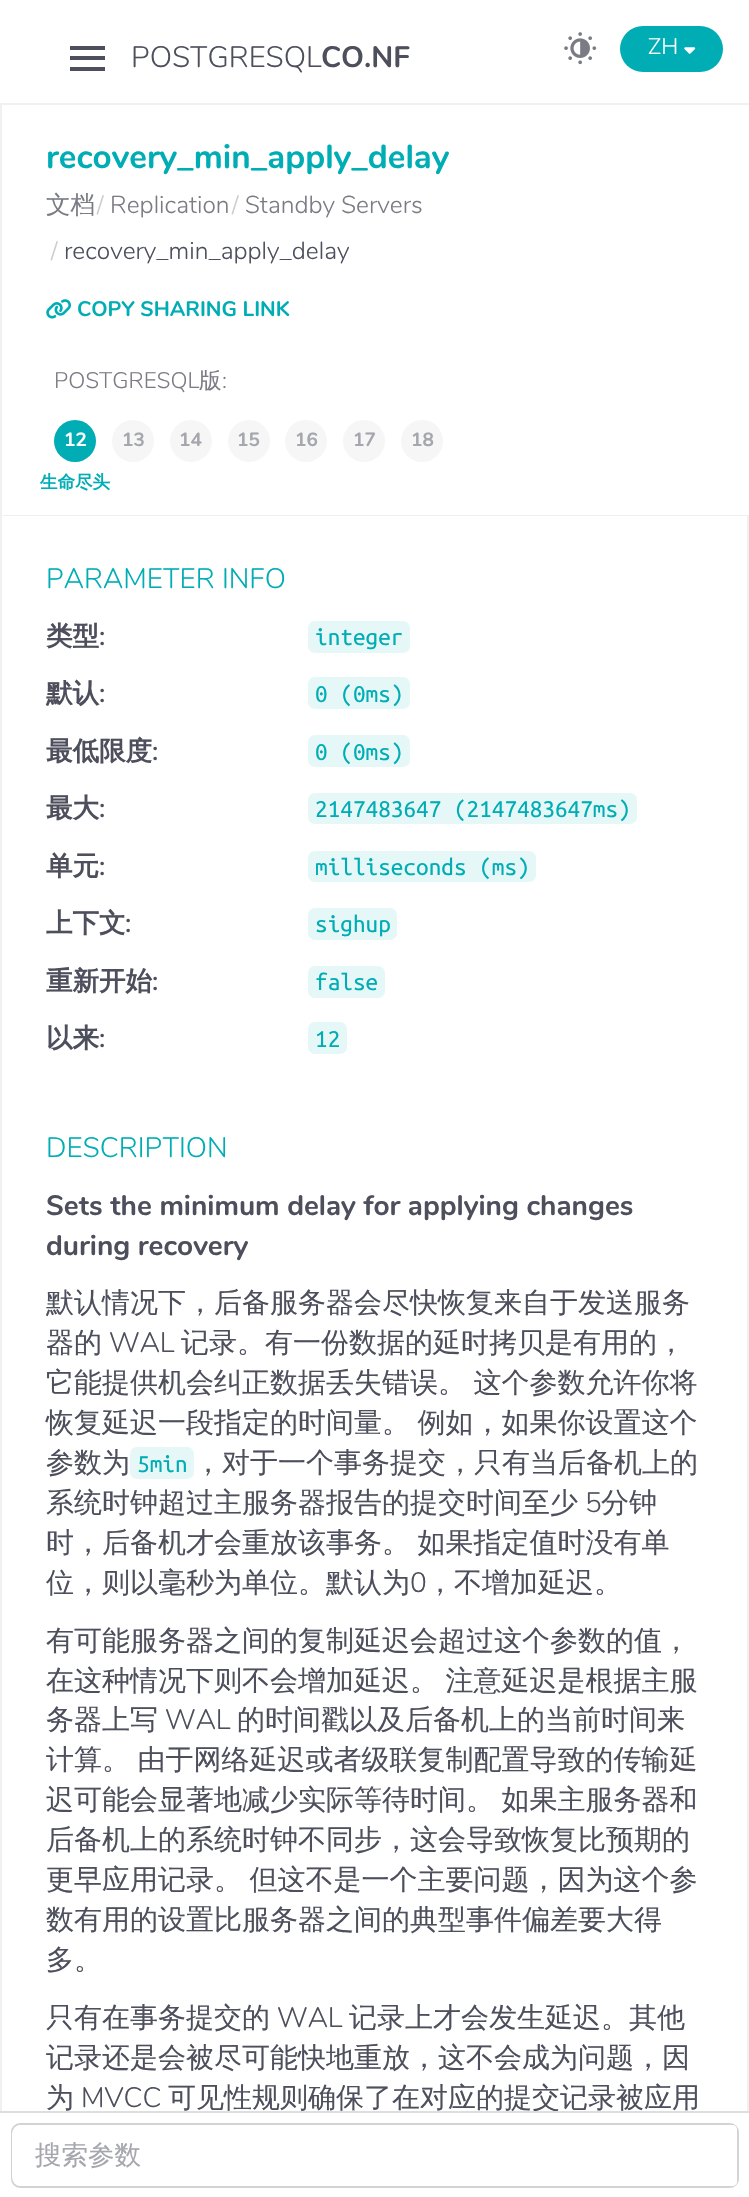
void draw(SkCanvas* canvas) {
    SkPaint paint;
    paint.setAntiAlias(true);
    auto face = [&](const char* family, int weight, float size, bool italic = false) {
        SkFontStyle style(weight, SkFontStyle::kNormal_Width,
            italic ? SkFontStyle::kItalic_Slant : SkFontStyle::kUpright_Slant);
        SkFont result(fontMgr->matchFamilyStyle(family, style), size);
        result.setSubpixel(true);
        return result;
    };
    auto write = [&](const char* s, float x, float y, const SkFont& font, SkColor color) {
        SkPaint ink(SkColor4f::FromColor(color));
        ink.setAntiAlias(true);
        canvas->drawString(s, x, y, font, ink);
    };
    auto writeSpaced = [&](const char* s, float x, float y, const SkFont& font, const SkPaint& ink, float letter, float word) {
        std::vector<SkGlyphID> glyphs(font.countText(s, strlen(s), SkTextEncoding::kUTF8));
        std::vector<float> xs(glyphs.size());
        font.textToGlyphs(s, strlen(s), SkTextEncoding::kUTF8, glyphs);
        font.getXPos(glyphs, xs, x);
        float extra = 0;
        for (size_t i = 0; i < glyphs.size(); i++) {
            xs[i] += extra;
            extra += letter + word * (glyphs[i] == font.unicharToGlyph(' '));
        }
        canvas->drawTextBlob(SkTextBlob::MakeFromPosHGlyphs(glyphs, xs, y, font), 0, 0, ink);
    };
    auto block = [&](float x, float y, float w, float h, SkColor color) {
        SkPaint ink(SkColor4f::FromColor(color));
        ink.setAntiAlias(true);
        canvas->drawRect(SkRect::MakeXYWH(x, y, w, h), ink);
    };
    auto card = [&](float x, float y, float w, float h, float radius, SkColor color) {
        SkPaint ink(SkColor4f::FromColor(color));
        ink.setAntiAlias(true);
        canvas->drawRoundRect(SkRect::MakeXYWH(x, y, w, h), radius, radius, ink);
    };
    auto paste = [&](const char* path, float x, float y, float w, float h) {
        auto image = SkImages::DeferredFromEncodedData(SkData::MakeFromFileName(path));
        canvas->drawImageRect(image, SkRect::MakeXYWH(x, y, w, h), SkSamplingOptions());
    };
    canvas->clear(SK_ColorWHITE);
    block(0, 103, 749, 2, SkColorSetRGB(240, 240, 241));
    block(70, 46, 35, 4, SkColorSetRGB(77, 79, 92));
    block(70, 56, 35, 4, SkColorSetRGB(77, 79, 92));
    block(70, 67, 35, 4, SkColorSetRGB(77, 79, 92));
    auto kFont1 = face("Nunito", 300, 29.5f);
    write("POSTGRESQL", 131, 67, kFont1, SkColorSetRGB(77, 79, 92));
    auto kFont2 = face("Nunito", 700, 29.5f);
    write("CO.NF", 321, 67, kFont2, SkColorSetRGB(77, 79, 92));
    paste("pic1.png", 564, 32, 33, 33);
    card(620, 26, 103, 46, 23, SkColorSetRGB(0, 173, 181));
    auto kFont3 = face("Nunito", 300, 22.5f);
    write("ZH", 648, 54, kFont3, SK_ColorWHITE);
    paste("pic2.png", 684, 47, 12, 7);
    block(0, 105, 2, 2006, SkColorSetRGB(240, 240, 241));
    block(2, 515, 747, 1, SkColorSetRGB(240, 240, 241));
    auto kFont4 = face("Nunito", 700, 33.25f);
    write("recovery_min_apply_delay", 46, 168, kFont4, SkColorSetRGB(0, 173, 181));
    auto kFont5 = face("WenQuanYi Zen Hei", 500, 24.5f);
    write("文档", 46, 213, kFont5, SkColorSetRGB(122, 123, 133));
    auto kFont6 = face("Nunito", 300, 24);
    write("/", 97, 213, kFont6, SkColorSetRGB(204, 204, 204));
    auto kFont7 = face("Nunito", 300, 24.5f);
    write("Replication", 110, 213, kFont7, SkColorSetRGB(122, 123, 133));
    write("/", 232, 213, kFont6, SkColorSetRGB(204, 204, 204));
    write("Standby Servers", 245, 213, kFont7, SkColorSetRGB(122, 123, 133));
    write("/", 51, 259, kFont6, SkColorSetRGB(204, 204, 204));
    write("recovery_min_apply_delay", 64, 259, kFont7, SkColorSetRGB(77, 79, 92));
    paste("pic3.png", 46, 299, 25, 20);
    auto kFont8 = face("Nunito", 700, 21);
    write("COPY SHARING LINK", 77, 316, kFont8, SkColorSetRGB(0, 173, 181));
    write("POSTGRESQL", 54, 388, kFont3, SkColorSetRGB(122, 123, 133));
    auto kFont9 = face("WenQuanYi Zen Hei", 500, 22.5f);
    write("版", 199, 388, kFont9, SkColorSetRGB(122, 123, 133));
    write(":", 222, 388, kFont3, SkColorSetRGB(122, 123, 133));
    paint.setColor(SkColorSetRGB(0, 173, 181));
    canvas->drawCircle(75, 441, 21, paint);
    auto kFont10 = face("Nunito", 700, 19);
    write("12", 64, 446, kFont10, SK_ColorWHITE);
    auto kFont11 = face("WenQuanYi Zen Hei", 700, 17.5f);
    write("生命尽头", 40, 488, kFont11, SkColorSetRGB(0, 173, 181));
    paint.setColor(SkColorSetRGB(246, 246, 247));
    canvas->drawCircle(133, 441, 21, paint);
    write("13", 122, 446, kFont10, SkColorSetRGB(166, 167, 174));
    canvas->drawCircle(191, 441, 21, paint);
    write("14", 179, 446, kFont10, SkColorSetRGB(166, 167, 174));
    canvas->drawCircle(249, 441, 21, paint);
    write("15", 237, 446, kFont10, SkColorSetRGB(166, 167, 174));
    canvas->drawCircle(306, 441, 21, paint);
    write("16", 295, 446, kFont10, SkColorSetRGB(166, 167, 174));
    canvas->drawCircle(364, 441, 21, paint);
    write("17", 353, 446, kFont10, SkColorSetRGB(166, 167, 174));
    canvas->drawCircle(422, 441, 21, paint);
    write("18", 411, 446, kFont10, SkColorSetRGB(166, 167, 174));
    block(747, 516, 2, 1595, SkColorSetRGB(240, 240, 241));
    auto kFont12 = face("Nunito", 300, 28);
    write("PARAMETER INFO", 46, 588, kFont12, SkColorSetRGB(0, 173, 181));
    auto kFont13 = face("WenQuanYi Zen Hei", 700, 26.5f);
    write("类型", 46, 645, kFont13, SkColorSetRGB(77, 79, 92));
    auto kFont14 = face("Nunito", 600, 26.5f);
    write(":", 99, 645, kFont14, SkColorSetRGB(77, 79, 92));
    card(308, 621, 102, 32, 7, SkColorSetRGB(230, 247, 248));
    auto kFont15 = face("Ubuntu Mono", 400, 25.25f);
    write("integer", 315, 645, kFont15, SkColorSetRGB(0, 173, 181));
    write("默认", 46, 702, kFont13, SkColorSetRGB(77, 79, 92));
    write(":", 99, 702, kFont14, SkColorSetRGB(77, 79, 92));
    card(308, 677, 102, 32, 7, SkColorSetRGB(230, 247, 248));
    write("0 (0ms)", 315, 702, kFont15, SkColorSetRGB(0, 173, 181));
    write("最低限度", 46, 760, kFont13, SkColorSetRGB(77, 79, 92));
    write(":", 152, 760, kFont14, SkColorSetRGB(77, 79, 92));
    card(308, 735, 102, 32, 7, SkColorSetRGB(230, 247, 248));
    write("0 (0ms)", 315, 760, kFont15, SkColorSetRGB(0, 173, 181));
    write("最大", 46, 817, kFont13, SkColorSetRGB(77, 79, 92));
    write(":", 99, 817, kFont14, SkColorSetRGB(77, 79, 92));
    card(308, 793, 329, 31, 7, SkColorSetRGB(230, 247, 248));
    write("2147483647 (2147483647ms)", 315, 817, kFont15, SkColorSetRGB(0, 173, 181));
    write("单元", 46, 875, kFont13, SkColorSetRGB(77, 79, 92));
    write(":", 99, 875, kFont14, SkColorSetRGB(77, 79, 92));
    card(308, 851, 228, 31, 7, SkColorSetRGB(230, 247, 248));
    write("milliseconds (ms)", 315, 875, kFont15, SkColorSetRGB(0, 173, 181));
    write("上下文", 46, 932, kFont13, SkColorSetRGB(77, 79, 92));
    write(":", 125, 932, kFont14, SkColorSetRGB(77, 79, 92));
    card(308, 908, 89, 32, 7, SkColorSetRGB(230, 247, 248));
    write("sighup", 315, 932, kFont15, SkColorSetRGB(0, 173, 181));
    write("重新开始", 46, 990, kFont13, SkColorSetRGB(77, 79, 92));
    write(":", 152, 990, kFont14, SkColorSetRGB(77, 79, 92));
    card(308, 966, 77, 32, 7, SkColorSetRGB(230, 247, 248));
    write("false", 315, 990, kFont15, SkColorSetRGB(0, 173, 181));
    write("以来", 46, 1047, kFont13, SkColorSetRGB(77, 79, 92));
    write(":", 99, 1047, kFont14, SkColorSetRGB(77, 79, 92));
    card(308, 1022, 39, 32, 7, SkColorSetRGB(230, 247, 248));
    write("12", 315, 1047, kFont15, SkColorSetRGB(0, 173, 181));
    write("DESCRIPTION", 46, 1157, kFont12, SkColorSetRGB(0, 173, 181));
    auto kFont16 = face("Nunito", 700, 28);
    write("Sets the minimum delay for applying changes", 46, 1215, kFont16, SkColorSetRGB(77, 79, 92));
    write("during recovery", 46, 1255, kFont16, SkColorSetRGB(77, 79, 92));
    auto kFont17 = face("WenQuanYi Zen Hei", 500, 28);
    write("默认情况下，后备服务器会尽快恢复来自于发送服务", 46, 1312, kFont17, SkColorSetRGB(77, 79, 92));
    write("器的", 46, 1352, kFont17, SkColorSetRGB(77, 79, 92));
    write("WAL", 109, 1352, kFont12, SkColorSetRGB(77, 79, 92));
    write("记录。有一份数据的延时拷贝是有用的，", 181, 1352, kFont17, SkColorSetRGB(77, 79, 92));
    paint.setColor(SkColorSetRGB(77, 79, 92));
    writeSpaced("它能提供机会纠正数据丢失错误。 这个参数允许你将", 46, 1392, kFont17, paint, 0, -1);
    writeSpaced("恢复延迟一段指定的时间量。 例如，如果你设置这个", 46, 1432, kFont17, paint, 0, -1);
    write("参数为", 46, 1472, kFont17, SkColorSetRGB(77, 79, 92));
    card(130, 1447, 64, 32, 7, SkColorSetRGB(230, 247, 248));
    write("5min", 137, 1472, kFont15, SkColorSetRGB(0, 173, 181));
    write("，对于一个事务提交，只有当后备机上的", 194, 1472, kFont17, SkColorSetRGB(77, 79, 92));
    write("系统时钟超过主服务器报告的提交时间至少", 46, 1512, kFont17, SkColorSetRGB(77, 79, 92));
    write("5", 585, 1512, kFont12, SkColorSetRGB(77, 79, 92));
    write("分钟", 601, 1512, kFont17, SkColorSetRGB(77, 79, 92));
    writeSpaced("时，后备机才会重放该事务。 如果指定值时没有单", 46, 1552, kFont17, paint, 0, -1);
    write("位，则以毫秒为单位。默认为", 46, 1592, kFont17, SkColorSetRGB(77, 79, 92));
    write("0", 410, 1592, kFont12, SkColorSetRGB(77, 79, 92));
    write("，不增加延迟。", 426, 1592, kFont17, SkColorSetRGB(77, 79, 92));
    write("有可能服务器之间的复制延迟会超过这个参数的值，", 46, 1650, kFont17, SkColorSetRGB(77, 79, 92));
    writeSpaced("在这种情况下则不会增加延迟。 注意延迟是根据主服", 46, 1690, kFont17, paint, 0, -1);
    write("务器上写", 46, 1729, kFont17, SkColorSetRGB(77, 79, 92));
    write("WAL", 165, 1729, kFont12, SkColorSetRGB(77, 79, 92));
    write("的时间戳以及后备机上的当前时间来", 237, 1729, kFont17, SkColorSetRGB(77, 79, 92));
    writeSpaced("计算。 由于网络延迟或者级联复制配置导致的传输延", 46, 1769, kFont17, paint, 0, -1);
    writeSpaced("迟可能会显著地减少实际等待时间。 如果主服务器和", 46, 1809, kFont17, paint, 0, -1);
    write("后备机上的系统时钟不同步，这会导致恢复比预期的", 46, 1849, kFont17, SkColorSetRGB(77, 79, 92));
    writeSpaced("更早应用记录。 但这不是一个主要问题，因为这个参", 46, 1889, kFont17, paint, 0, -1);
    write("数有用的设置比服务器之间的典型事件偏差要大得", 46, 1929, kFont17, SkColorSetRGB(77, 79, 92));
    write("多。", 46, 1969, kFont17, SkColorSetRGB(77, 79, 92));
    write("只有在事务提交的", 46, 2027, kFont17, SkColorSetRGB(77, 79, 92));
    write("WAL", 277, 2027, kFont12, SkColorSetRGB(77, 79, 92));
    write("记录上才会发生延迟。其他", 349, 2027, kFont17, SkColorSetRGB(77, 79, 92));
    write("记录还是会被尽可能快地重放，这不会成为问题，因", 46, 2067, kFont17, SkColorSetRGB(77, 79, 92));
    write("为", 46, 2107, kFont17, SkColorSetRGB(77, 79, 92));
    write("MVCC", 81, 2107, kFont12, SkColorSetRGB(77, 79, 92));
    write("可见性规则确保了在对应的提交记录被应用", 168, 2107, kFont17, SkColorSetRGB(77, 79, 92));
    block(0, 2111, 749, 2, SkColorSetRGB(222, 222, 222));
    paint.setStyle(SkPaint::kStroke_Style);
    paint.setStrokeWidth(2);
    paint.setColor(SkColorSetRGB(211, 211, 214));
    canvas->drawRoundRect(SkRect::MakeXYWH(12, 2124, 726, 63), 8, 8, paint);
    card(12, 2125, 655, 61, 9, SK_ColorWHITE);
    auto kFont18 = face("WenQuanYi Zen Hei", 500, 26.5f);
    write("搜索参数", 35, 2164, kFont18, SkColorSetRGB(166, 167, 174));
    paint.setStyle(SkPaint::kFill_Style);
    paint.setColor(SK_ColorWHITE);
    canvas->drawPath(SkPathBuilder().moveTo(665, 2125).lineTo(733, 2125).cubicTo(735, 2125, 737, 2127, 737, 2129).lineTo(737, 2182).cubicTo(737, 2184, 735, 2186, 733, 2186).lineTo(665, 2186).close().detach(), paint);
}
